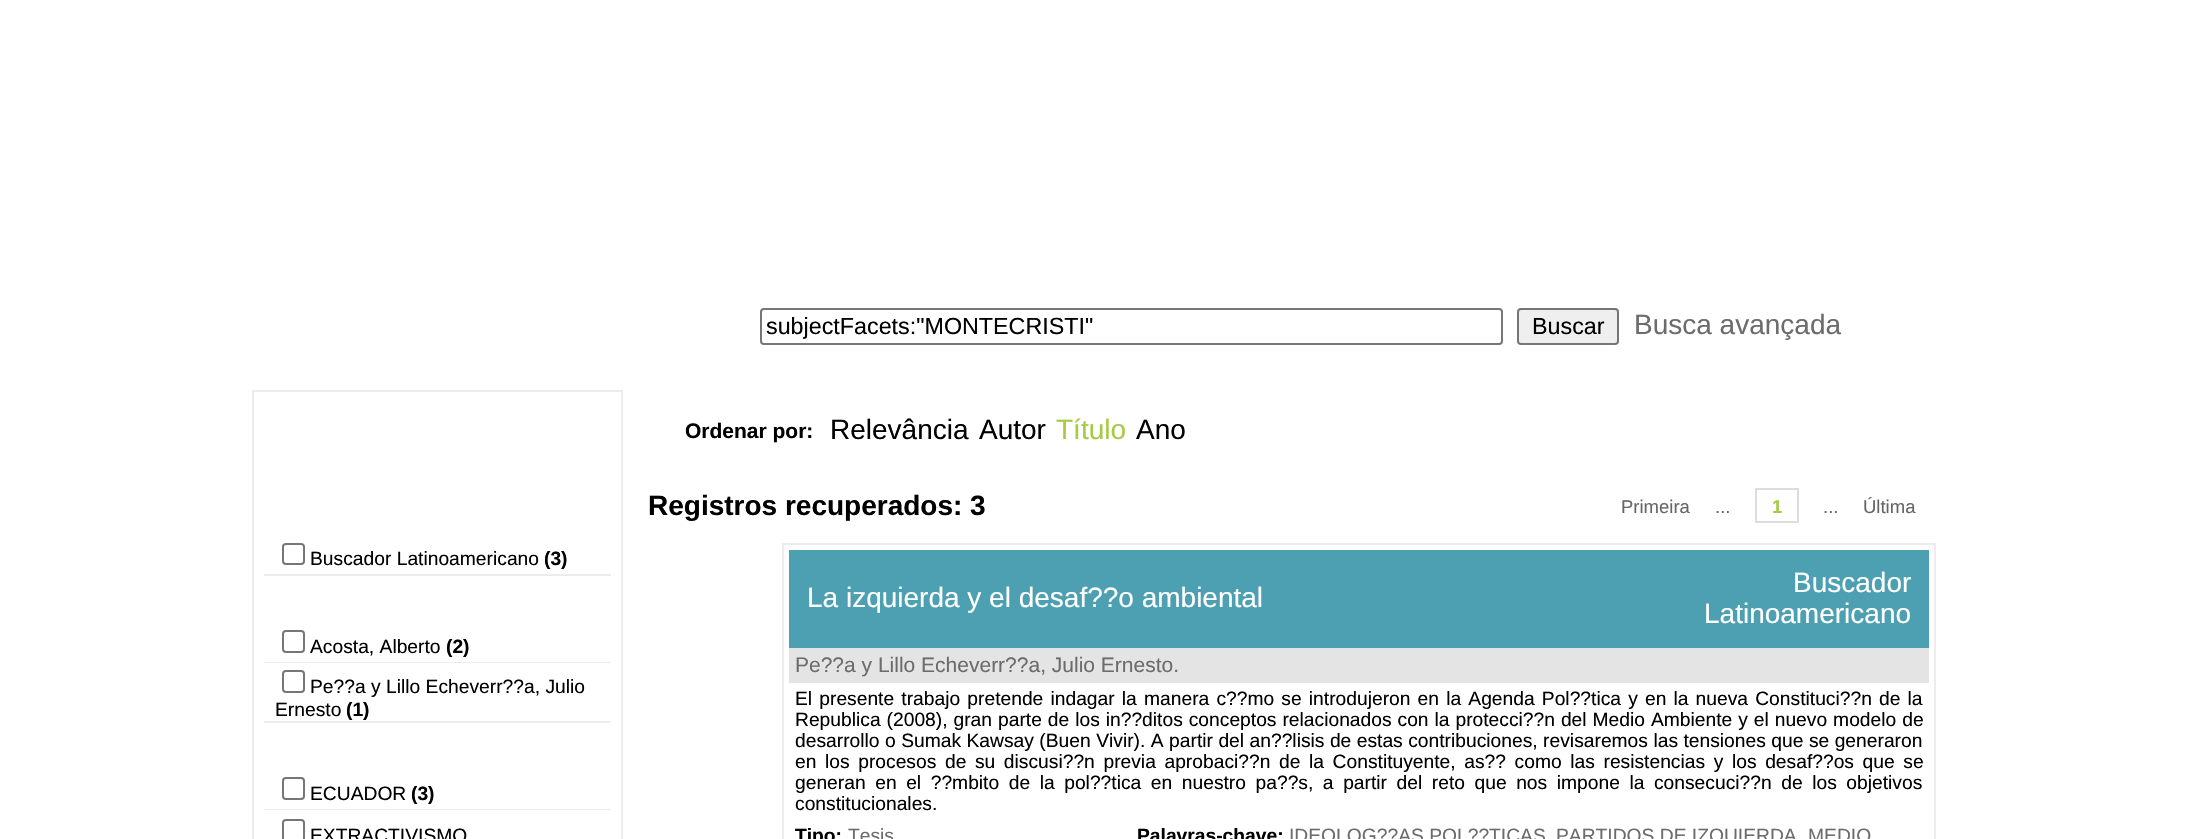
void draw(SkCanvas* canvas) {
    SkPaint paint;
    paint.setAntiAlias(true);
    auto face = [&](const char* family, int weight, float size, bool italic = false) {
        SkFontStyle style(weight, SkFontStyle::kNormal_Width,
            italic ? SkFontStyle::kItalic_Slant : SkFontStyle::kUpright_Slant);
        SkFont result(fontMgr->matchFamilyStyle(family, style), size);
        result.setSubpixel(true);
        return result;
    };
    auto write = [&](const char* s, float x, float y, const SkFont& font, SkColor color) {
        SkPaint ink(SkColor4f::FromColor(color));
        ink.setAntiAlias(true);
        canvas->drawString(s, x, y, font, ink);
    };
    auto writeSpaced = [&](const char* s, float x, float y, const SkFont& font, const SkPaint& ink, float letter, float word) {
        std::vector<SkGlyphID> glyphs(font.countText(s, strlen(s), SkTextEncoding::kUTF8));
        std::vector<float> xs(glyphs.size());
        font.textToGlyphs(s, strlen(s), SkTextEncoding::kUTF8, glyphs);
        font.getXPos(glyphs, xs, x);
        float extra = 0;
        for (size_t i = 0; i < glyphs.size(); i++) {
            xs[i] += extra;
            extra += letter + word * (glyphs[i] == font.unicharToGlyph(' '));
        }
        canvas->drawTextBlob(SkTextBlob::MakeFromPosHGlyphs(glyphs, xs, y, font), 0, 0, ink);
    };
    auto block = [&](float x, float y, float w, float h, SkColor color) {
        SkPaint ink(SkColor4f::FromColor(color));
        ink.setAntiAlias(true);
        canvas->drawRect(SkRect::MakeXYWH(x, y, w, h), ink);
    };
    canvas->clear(SK_ColorWHITE);
    paint.setStyle(SkPaint::kStroke_Style);
    paint.setStrokeWidth(2);
    paint.setColor(SkColorSetRGB(118, 118, 118));
    canvas->drawRoundRect(SkRect::MakeXYWH(761, 309, 741, 35), 3, 3, paint);
    auto kFont1 = face("Liberation Sans", 400, 23.3f);
    write("subjectFacets:\"MONTECRISTI\"", 766, 334, kFont1, SK_ColorBLACK);
    paint.setStyle(SkPaint::kFill_Style);
    paint.setColor(SkColorSetRGB(239, 239, 239));
    canvas->drawRoundRect(SkRect::MakeXYWH(1518, 309, 100, 35), 3, 3, paint);
    paint.setStyle(SkPaint::kStroke_Style);
    paint.setColor(SkColorSetRGB(118, 118, 118));
    canvas->drawRoundRect(SkRect::MakeXYWH(1518, 309, 100, 35), 3, 3, paint);
    write("Buscar", 1532, 334, kFont1, SK_ColorBLACK);
    auto kFont2 = face("Liberation Sans", 400, 28);
    write("Busca avançada", 1634, 334, kFont2, SkColorSetRGB(108, 108, 108));
    block(252, 390, 371, 449, SkColorSetRGB(236, 236, 236));
    block(254, 392, 367, 447, SK_ColorWHITE);
    block(264, 574, 347, 2, SkColorSetRGB(236, 236, 236));
    canvas->drawRoundRect(SkRect::MakeXYWH(283, 544, 21, 20), 3, 3, paint);
    auto kFont3 = face("Liberation Sans", 400, 19.25f);
    write("Buscador Latinoamericano", 310, 565, kFont3, SK_ColorBLACK);
    auto kFont4 = face("Liberation Sans", 700, 19.25f);
    write("(3)", 544, 565, kFont4, SK_ColorBLACK);
    block(264, 662, 347, 1, SkColorSetRGB(236, 236, 236));
    canvas->drawRoundRect(SkRect::MakeXYWH(283, 631, 21, 21), 3, 3, paint);
    write("Acosta, Alberto", 310, 653, kFont3, SK_ColorBLACK);
    write("(2)", 446, 653, kFont4, SK_ColorBLACK);
    block(264, 721, 347, 2, SkColorSetRGB(236, 236, 236));
    canvas->drawRoundRect(SkRect::MakeXYWH(283, 671, 21, 21), 3, 3, paint);
    write("Pe?\077a y Lillo Echeverr?\077a, Julio", 310, 693, kFont3, SK_ColorBLACK);
    write("Ernesto", 275, 716, kFont3, SK_ColorBLACK);
    write("(1)", 346, 716, kFont4, SK_ColorBLACK);
    block(264, 809, 347, 1, SkColorSetRGB(236, 236, 236));
    canvas->drawRoundRect(SkRect::MakeXYWH(283, 778, 21, 21), 3, 3, paint);
    write("ECUADOR", 310, 800, kFont3, SK_ColorBLACK);
    write("(3)", 411, 800, kFont4, SK_ColorBLACK);
    canvas->drawRoundRect(SkRect::MakeXYWH(283, 820, 21, 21), 3, 3, paint);
    write("EXTRACTIVISMO", 310, 842, kFont3, SK_ColorBLACK);
    auto kFont5 = face("Liberation Sans", 700, 21);
    write("Ordenar por:", 685, 438, kFont5, SK_ColorBLACK);
    write("Relevância", 830, 439, kFont2, SK_ColorBLACK);
    write("Autor", 979, 439, kFont2, SK_ColorBLACK);
    write("Título", 1056, 439, kFont2, SkColorSetRGB(166, 202, 68));
    write("Ano", 1136, 439, kFont2, SK_ColorBLACK);
    auto kFont6 = face("Liberation Sans", 700, 28);
    write("Registros recuperados: 3", 648, 515, kFont6, SK_ColorBLACK);
    auto kFont7 = face("Liberation Sans", 400, 18.5f);
    write("Primeira", 1621, 513, kFont7, SkColorSetRGB(102, 102, 102));
    write("...", 1715, 513, kFont7, SkColorSetRGB(102, 102, 102));
    paint.setColor(SkColorSetRGB(221, 221, 221));
    canvas->drawRect(SkRect::MakeXYWH(1756, 489, 42, 33), paint);
    auto kFont8 = face("Liberation Sans", 700, 18.5f);
    write("1", 1772, 513, kFont8, SkColorSetRGB(166, 202, 68));
    write("...", 1823, 513, kFont7, SkColorSetRGB(102, 102, 102));
    write("Última", 1863, 513, kFont7, SkColorSetRGB(102, 102, 102));
    paint.setColor(SkColorSetRGB(236, 236, 236));
    canvas->drawRect(SkRect::MakeXYWH(783, 544, 1152, 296), paint);
    block(789, 550, 1140, 98, SkColorSetRGB(77, 160, 178));
    write("La izquierda y el desaf?\077o ambiental", 807, 607, kFont2, SK_ColorWHITE);
    write("Buscador", 1793, 592, kFont2, SK_ColorWHITE);
    write("Latinoamericano", 1704, 623, kFont2, SK_ColorWHITE);
    block(789, 648, 1140, 35, SkColorSetRGB(228, 228, 228));
    auto kFont9 = face("Liberation Sans", 400, 21);
    write("Pe?\077a y Lillo Echeverr?\077a, Julio Ernesto.", 795, 672, kFont9, SkColorSetRGB(108, 108, 108));
    paint.setStyle(SkPaint::kFill_Style);
    paint.setColor(SK_ColorBLACK);
    writeSpaced("El presente trabajo pretende indagar la manera c?\077mo se introdujeron en la Agenda Pol?\077tica y en la nueva Constituci?\077n de la", 795, 705, kFont3, paint, 0, 1.8f);
    writeSpaced("Republica (2008), gran parte de los in?\077ditos conceptos relacionados con la protecci?\077n del Medio Ambiente y el nuevo modelo de", 795, 726, kFont3, paint, 0, 0.6f);
    writeSpaced("desarrollo o Sumak Kawsay (Buen Vivir). A partir del an?\077lisis de estas contribuciones, revisaremos las tensiones que se generaron", 795, 747, kFont3, paint, 0, 0.1f);
    writeSpaced("en los procesos de su discusi?\077n previa aprobaci?\077n de la Constituyente, as?\077 como las resistencias y los desaf?\077os que se", 795, 768, kFont3, paint, 0, 3.25f);
    writeSpaced("generan en el ?\077mbito de la pol?\077tica en nuestro pa?\077s, a partir del reto que nos impone la consecuci?\077n de los objetivos", 795, 789, kFont3, paint, 0, 4.2f);
    write("constitucionales.", 795, 810, kFont3, SK_ColorBLACK);
    write("Tipo:", 795, 842, kFont4, SK_ColorBLACK);
    write("Tesis", 848, 842, kFont3, SkColorSetRGB(108, 108, 108));
    write("Palavras-chave:", 1137, 842, kFont4, SK_ColorBLACK);
    write("IDEOLOG?\077AS POL?\077TICAS", 1289, 842, kFont3, SkColorSetRGB(108, 108, 108));
    write("PARTIDOS DE IZQUIERDA", 1556, 842, kFont3, SkColorSetRGB(108, 108, 108));
    write("MEDIO", 1808, 842, kFont3, SkColorSetRGB(108, 108, 108));
}
